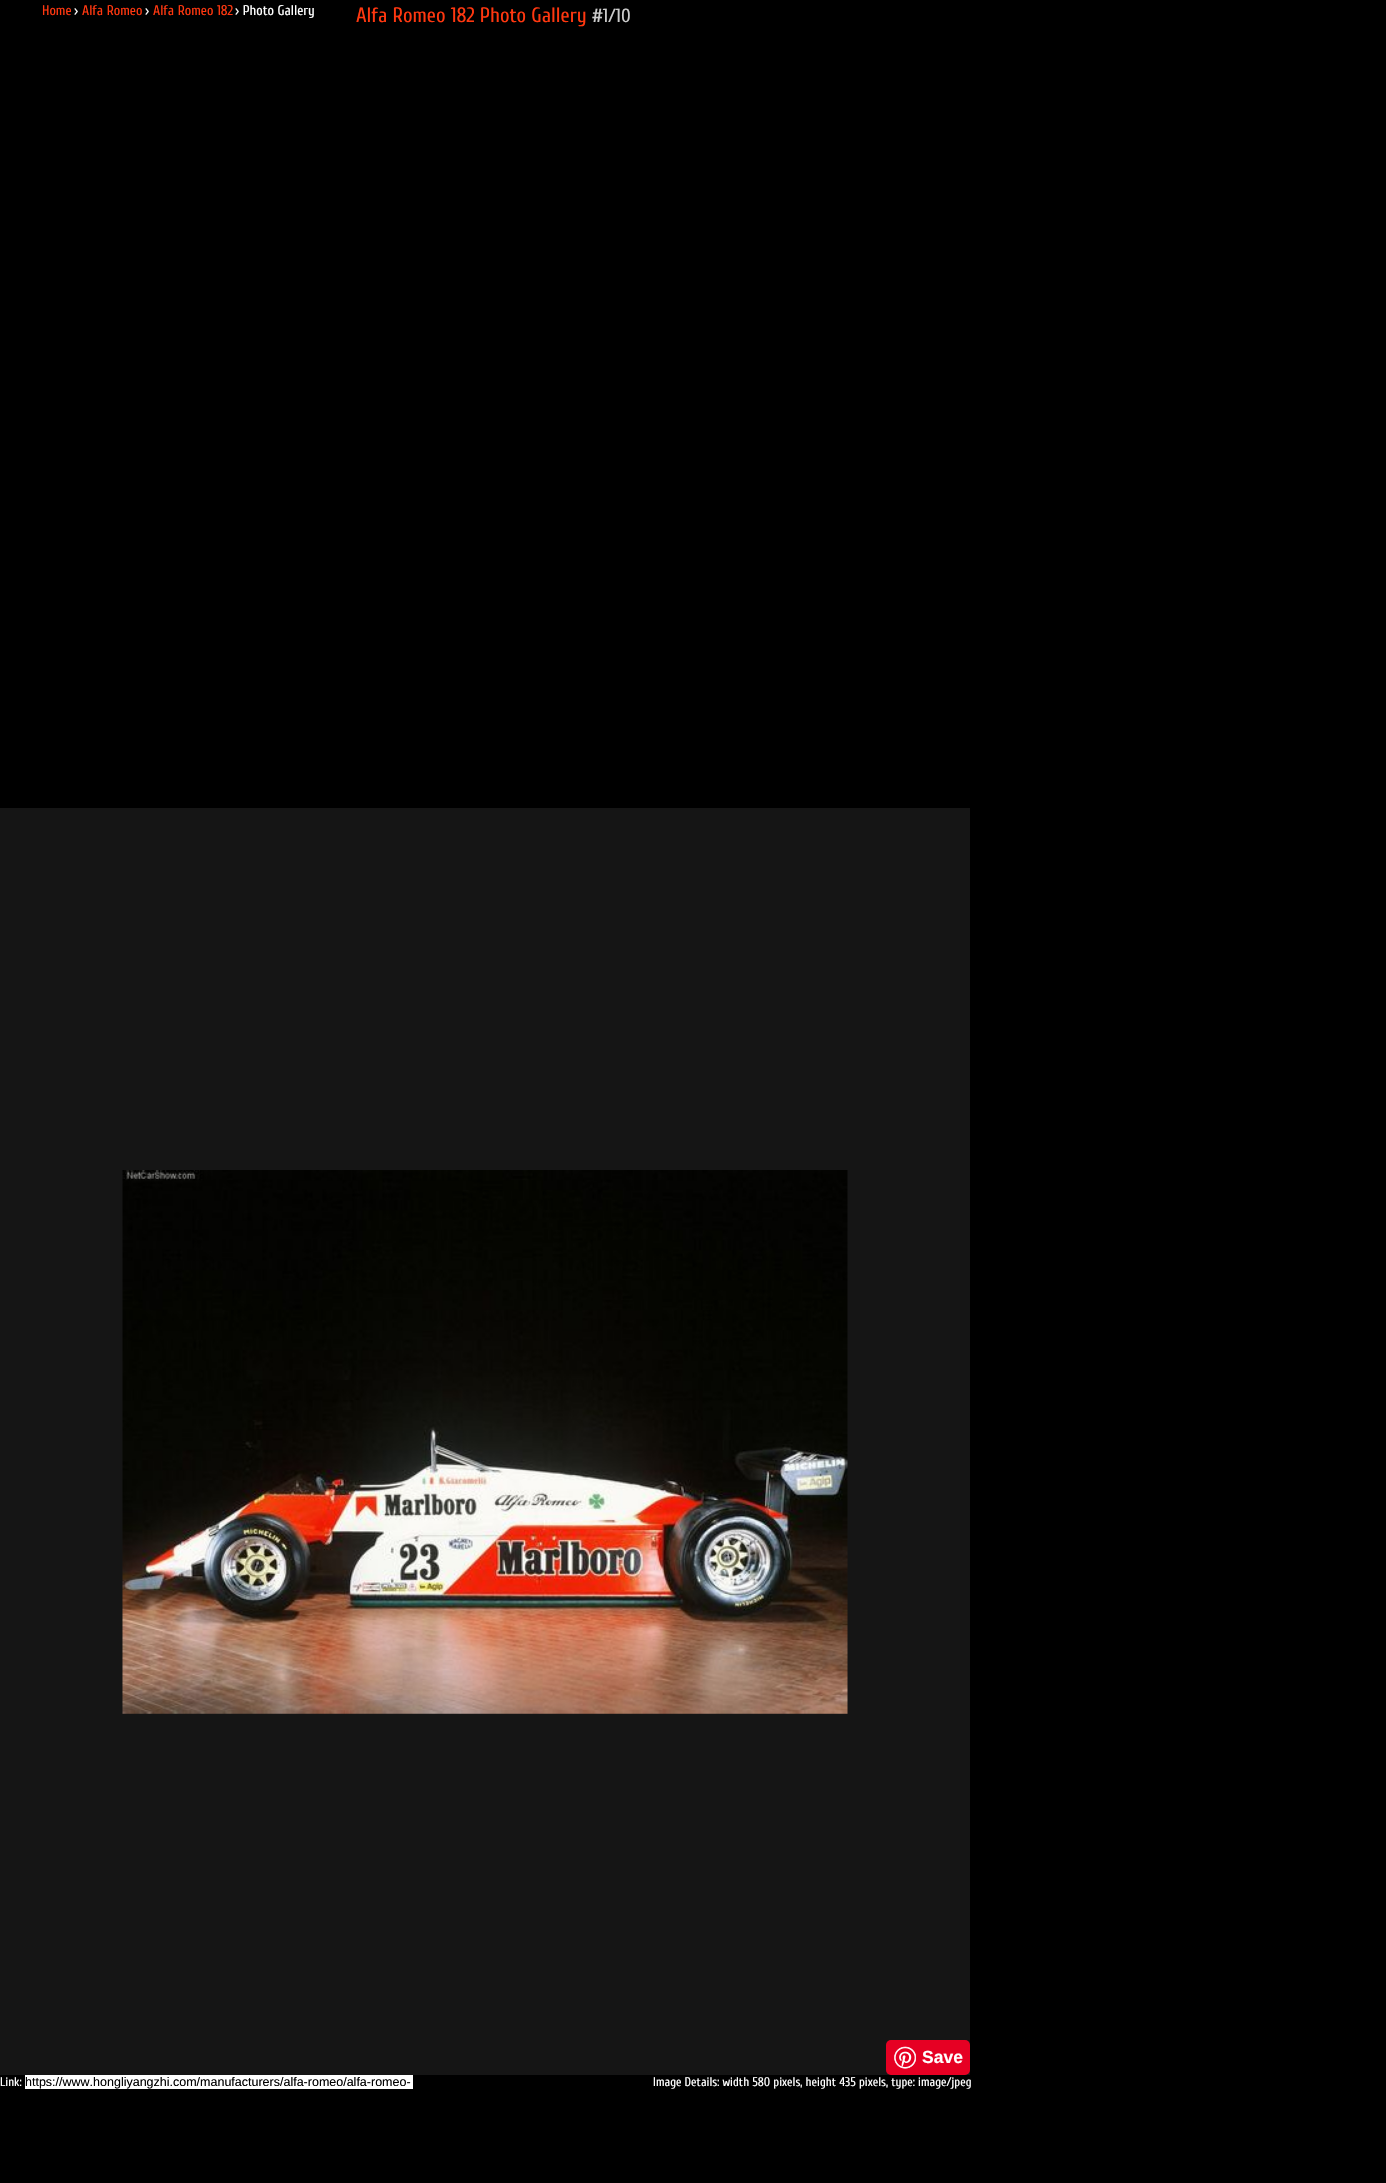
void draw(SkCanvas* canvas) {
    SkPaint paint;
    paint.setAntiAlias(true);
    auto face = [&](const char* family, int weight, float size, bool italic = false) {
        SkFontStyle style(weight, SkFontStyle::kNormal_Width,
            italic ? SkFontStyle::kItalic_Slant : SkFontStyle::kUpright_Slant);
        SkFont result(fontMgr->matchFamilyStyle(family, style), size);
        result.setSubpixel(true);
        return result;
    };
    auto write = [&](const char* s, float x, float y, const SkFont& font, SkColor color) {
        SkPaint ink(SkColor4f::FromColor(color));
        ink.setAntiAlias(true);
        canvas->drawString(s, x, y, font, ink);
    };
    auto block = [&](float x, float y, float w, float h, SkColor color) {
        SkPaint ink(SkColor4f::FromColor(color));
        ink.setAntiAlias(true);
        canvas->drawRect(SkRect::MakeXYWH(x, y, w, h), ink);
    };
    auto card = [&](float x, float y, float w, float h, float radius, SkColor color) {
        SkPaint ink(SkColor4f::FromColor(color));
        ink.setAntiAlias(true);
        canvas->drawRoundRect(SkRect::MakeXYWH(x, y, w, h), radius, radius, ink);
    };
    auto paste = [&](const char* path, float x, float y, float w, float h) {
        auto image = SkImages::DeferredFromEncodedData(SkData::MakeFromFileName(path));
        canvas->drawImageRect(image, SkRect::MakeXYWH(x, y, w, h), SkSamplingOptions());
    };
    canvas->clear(SK_ColorBLACK);
    auto kFont1 = face("Cuprum", 400, 14);
    write("Home", 42, 15, kFont1, SkColorSetRGB(255, 55, 15));
    write("›", 74, 15, kFont1, SK_ColorWHITE);
    write("Alfa Romeo", 82, 15, kFont1, SkColorSetRGB(255, 55, 15));
    write("›", 145, 15, kFont1, SK_ColorWHITE);
    write("Alfa Romeo 182", 153, 15, kFont1, SkColorSetRGB(255, 55, 15));
    write("› Photo Gallery", 235, 15, kFont1, SK_ColorWHITE);
    auto kFont2 = face("Cuprum", 400, 20.75f);
    write("Alfa Romeo 182 Photo Gallery", 356, 22, kFont2, SkColorSetRGB(255, 55, 15));
    auto kFont3 = face("Cuprum", 400, 19);
    write("#1/10", 592, 22, kFont3, SkColorSetRGB(204, 204, 204));
    block(0, 808, 970, 1267, SkColorSetRGB(21, 21, 21));
    paste("pic1.png", 122, 1170, 726, 544);
    card(886, 2040, 84, 35, 5, SkColorSetRGB(230, 0, 35));
    paste("pic2.png", 894, 2046, 22, 23);
    auto kFont4 = face("Liberation Sans", 700, 17.5f);
    write("Save", 922, 2063, kFont4, SK_ColorWHITE);
    auto kFont5 = face("Cuprum", 400, 12.5f);
    write("Link:", 0, 2086, kFont5, SK_ColorWHITE);
    block(25, 2075, 388, 14, SK_ColorWHITE);
    auto kFont6 = face("Liberation Sans", 400, 12.5f);
    write("https://www.hongliyangzhi.com/manufacturers/alfa-romeo/alfa-romeo-", 25, 2086, kFont6, SK_ColorBLACK);
    write("Image Details: width 580 pixels, height 435 pixels, type: image/jpeg", 653, 2086, kFont5, SK_ColorWHITE);
}
